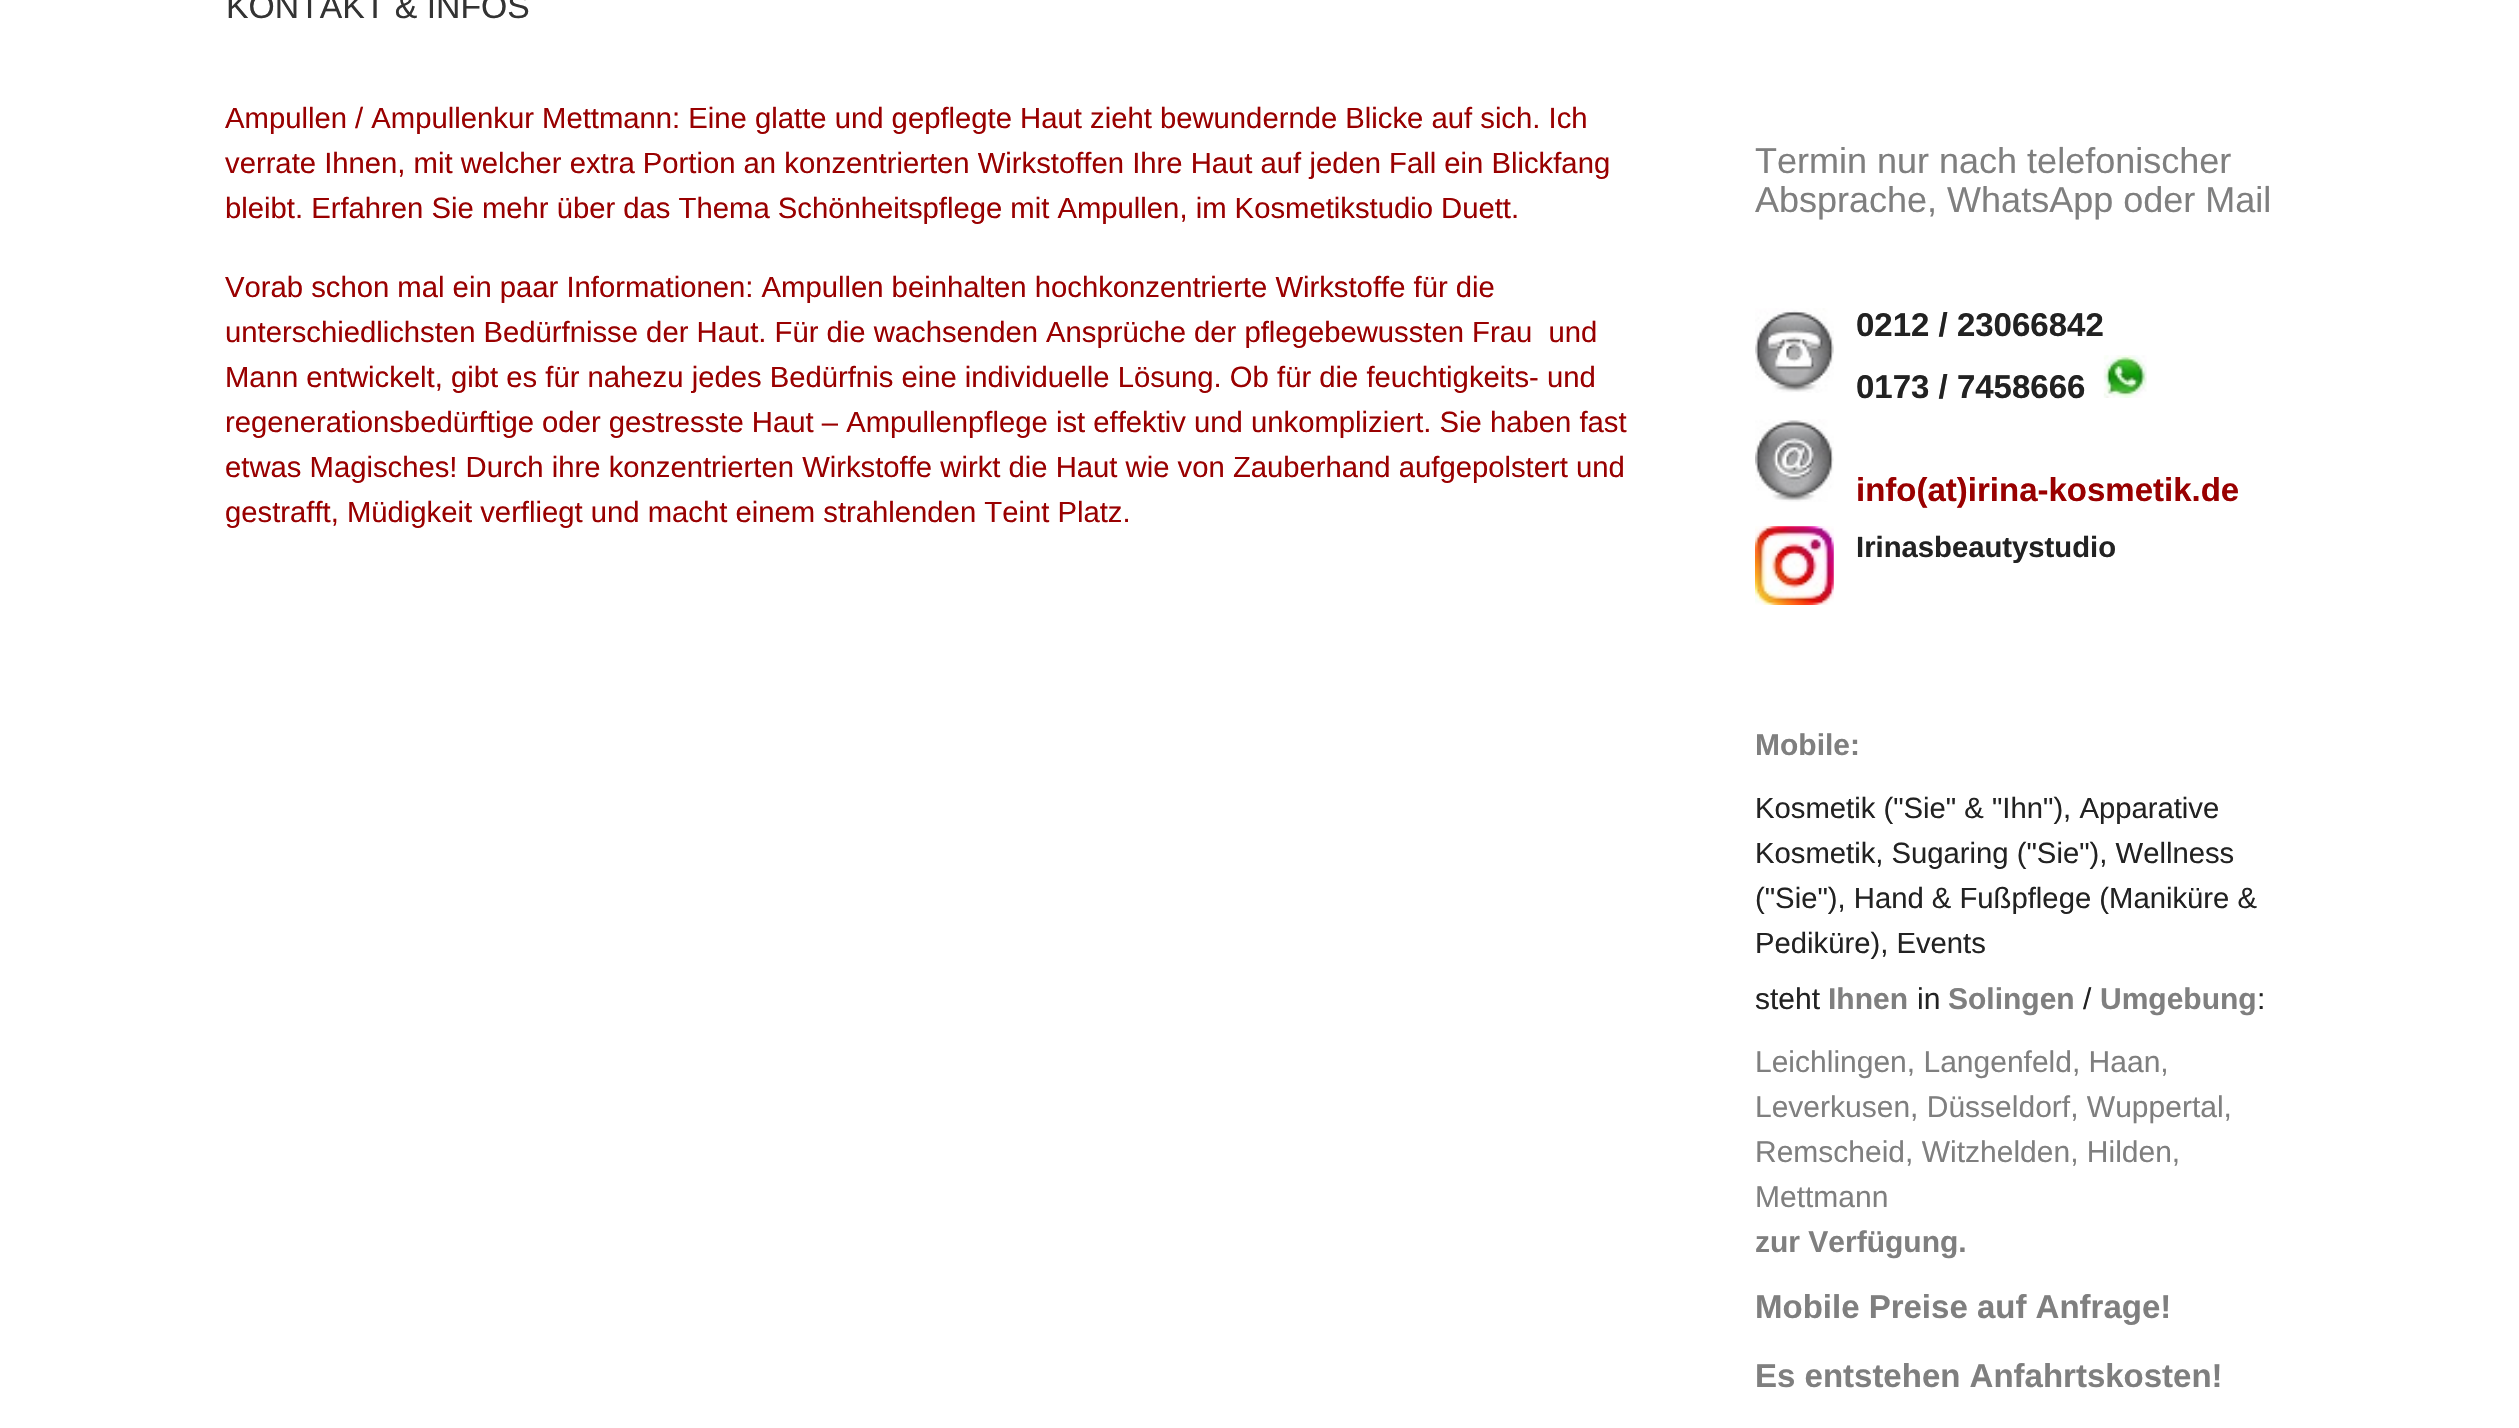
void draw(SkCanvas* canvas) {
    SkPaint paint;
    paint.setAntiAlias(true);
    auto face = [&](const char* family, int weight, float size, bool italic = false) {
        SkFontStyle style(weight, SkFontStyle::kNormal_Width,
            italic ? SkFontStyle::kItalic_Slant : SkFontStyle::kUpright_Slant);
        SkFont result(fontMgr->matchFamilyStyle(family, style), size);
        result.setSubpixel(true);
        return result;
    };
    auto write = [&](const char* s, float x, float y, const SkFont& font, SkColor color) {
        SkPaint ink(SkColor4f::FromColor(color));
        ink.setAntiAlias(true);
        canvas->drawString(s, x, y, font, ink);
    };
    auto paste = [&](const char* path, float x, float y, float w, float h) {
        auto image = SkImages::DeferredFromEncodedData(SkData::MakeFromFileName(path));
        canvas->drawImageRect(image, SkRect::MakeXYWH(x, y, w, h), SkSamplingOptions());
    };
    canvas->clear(SK_ColorWHITE);
    auto kFont1 = face("Liberation Sans", 400, 33.75f);
    write("KONTAKT & INFOS", 226, 18, kFont1, SkColorSetRGB(51, 51, 51));
    auto kFont2 = face("Liberation Sans", 400, 29.25f);
    write("Ampullen / Ampullenkur Mettmann: Eine glatte und gepflegte Haut zieht bewundernde Blicke auf sich. Ich", 225, 128, kFont2, SkColorSetRGB(153, 0, 0));
    write("verrate Ihnen, mit welcher extra Portion an konzentrierten Wirkstoffen Ihre Haut auf jeden Fall ein Blickfang", 225, 173, kFont2, SkColorSetRGB(153, 0, 0));
    write("bleibt. Erfahren Sie mehr über das Thema Schönheitspflege mit Ampullen, im Kosmetikstudio Duett.", 225, 218, kFont2, SkColorSetRGB(153, 0, 0));
    write("Vorab schon mal ein paar Informationen: Ampullen beinhalten hochkonzentrierte Wirkstoffe für die", 225, 297, kFont2, SkColorSetRGB(153, 0, 0));
    write("unterschiedlichsten Bedürfnisse der Haut. Für die wachsenden Ansprüche der pflegebewussten Frau  und", 225, 342, kFont2, SkColorSetRGB(153, 0, 0));
    write("Mann entwickelt, gibt es für nahezu jedes Bedürfnis eine individuelle Lösung. Ob für die feuchtigkeits- und", 225, 387, kFont2, SkColorSetRGB(153, 0, 0));
    write("regenerationsbedürftige oder gestresste Haut – Ampullenpflege ist effektiv und unkompliziert. Sie haben fast", 225, 432, kFont2, SkColorSetRGB(153, 0, 0));
    write("etwas Magisches! Durch ihre konzentrierten Wirkstoffe wirkt die Haut wie von Zauberhand aufgepolstert und", 225, 477, kFont2, SkColorSetRGB(153, 0, 0));
    write("gestrafft, Müdigkeit verfliegt und macht einem strahlenden Teint Platz.", 225, 522, kFont2, SkColorSetRGB(153, 0, 0));
    auto kFont3 = face("Liberation Sans", 400, 36);
    write("Termin nur nach telefonischer", 1755, 173, kFont3, SkColorSetRGB(127, 127, 127));
    write("Absprache, WhatsApp oder Mail", 1755, 212, kFont3, SkColorSetRGB(127, 127, 127));
    paste("pic1.png", 1755, 308, 79, 85);
    auto kFont4 = face("Liberation Sans", 700, 33);
    write("0212 / 23066842", 1856, 336, kFont4, SkColorSetRGB(34, 34, 34));
    write("0173 / 7458666", 1856, 398, kFont4, SkColorSetRGB(34, 34, 34));
    paste("pic2.png", 2103, 355, 44, 43);
    paste("pic3.png", 1755, 419, 79, 83);
    write("info(at)irina-kosmetik.de", 1856, 501, kFont4, SkColorSetRGB(153, 0, 0));
    paste("pic4.png", 1755, 526, 79, 79);
    auto kFont5 = face("Liberation Sans", 700, 29.25f);
    write("Irinasbeautystudio", 1856, 557, kFont5, SkColorSetRGB(34, 34, 34));
    auto kFont6 = face("Liberation Sans", 700, 30);
    write("Mobile:", 1755, 755, kFont6, SkColorSetRGB(127, 127, 127));
    write("Kosmetik (\"Sie\" & \"Ihn\"), Apparative", 1755, 818, kFont2, SkColorSetRGB(34, 34, 34));
    write("Kosmetik, Sugaring (\"Sie\"), Wellness", 1755, 863, kFont2, SkColorSetRGB(34, 34, 34));
    write("(\"Sie\"), Hand & Fußpflege (Maniküre &", 1755, 908, kFont2, SkColorSetRGB(34, 34, 34));
    write("Pediküre), Events", 1755, 953, kFont2, SkColorSetRGB(34, 34, 34));
    auto kFont7 = face("Liberation Sans", 400, 30);
    write("steht", 1755, 1009, kFont7, SkColorSetRGB(34, 34, 34));
    write("Ihnen", 1828, 1009, kFont6, SkColorSetRGB(127, 127, 127));
    write("in", 1917, 1009, kFont7, SkColorSetRGB(34, 34, 34));
    write("Solingen", 1948, 1009, kFont6, SkColorSetRGB(127, 127, 127));
    write("/", 2083, 1009, kFont7, SkColorSetRGB(34, 34, 34));
    write("Umgebung", 2100, 1009, kFont6, SkColorSetRGB(127, 127, 127));
    write(":", 2257, 1009, kFont7, SkColorSetRGB(34, 34, 34));
    write("Leichlingen, Langenfeld, Haan,", 1755, 1072, kFont7, SkColorSetRGB(127, 127, 127));
    write("Leverkusen, Düsseldorf, Wuppertal,", 1755, 1117, kFont7, SkColorSetRGB(127, 127, 127));
    write("Remscheid, Witzhelden, Hilden,", 1755, 1162, kFont7, SkColorSetRGB(127, 127, 127));
    write("Mettmann", 1755, 1207, kFont7, SkColorSetRGB(127, 127, 127));
    write("zur Verfügung.", 1755, 1252, kFont6, SkColorSetRGB(127, 127, 127));
    write("Mobile Preise auf Anfrage!", 1755, 1318, kFont4, SkColorSetRGB(127, 127, 127));
    write("Es entstehen Anfahrtskosten!", 1755, 1387, kFont4, SkColorSetRGB(127, 127, 127));
}
